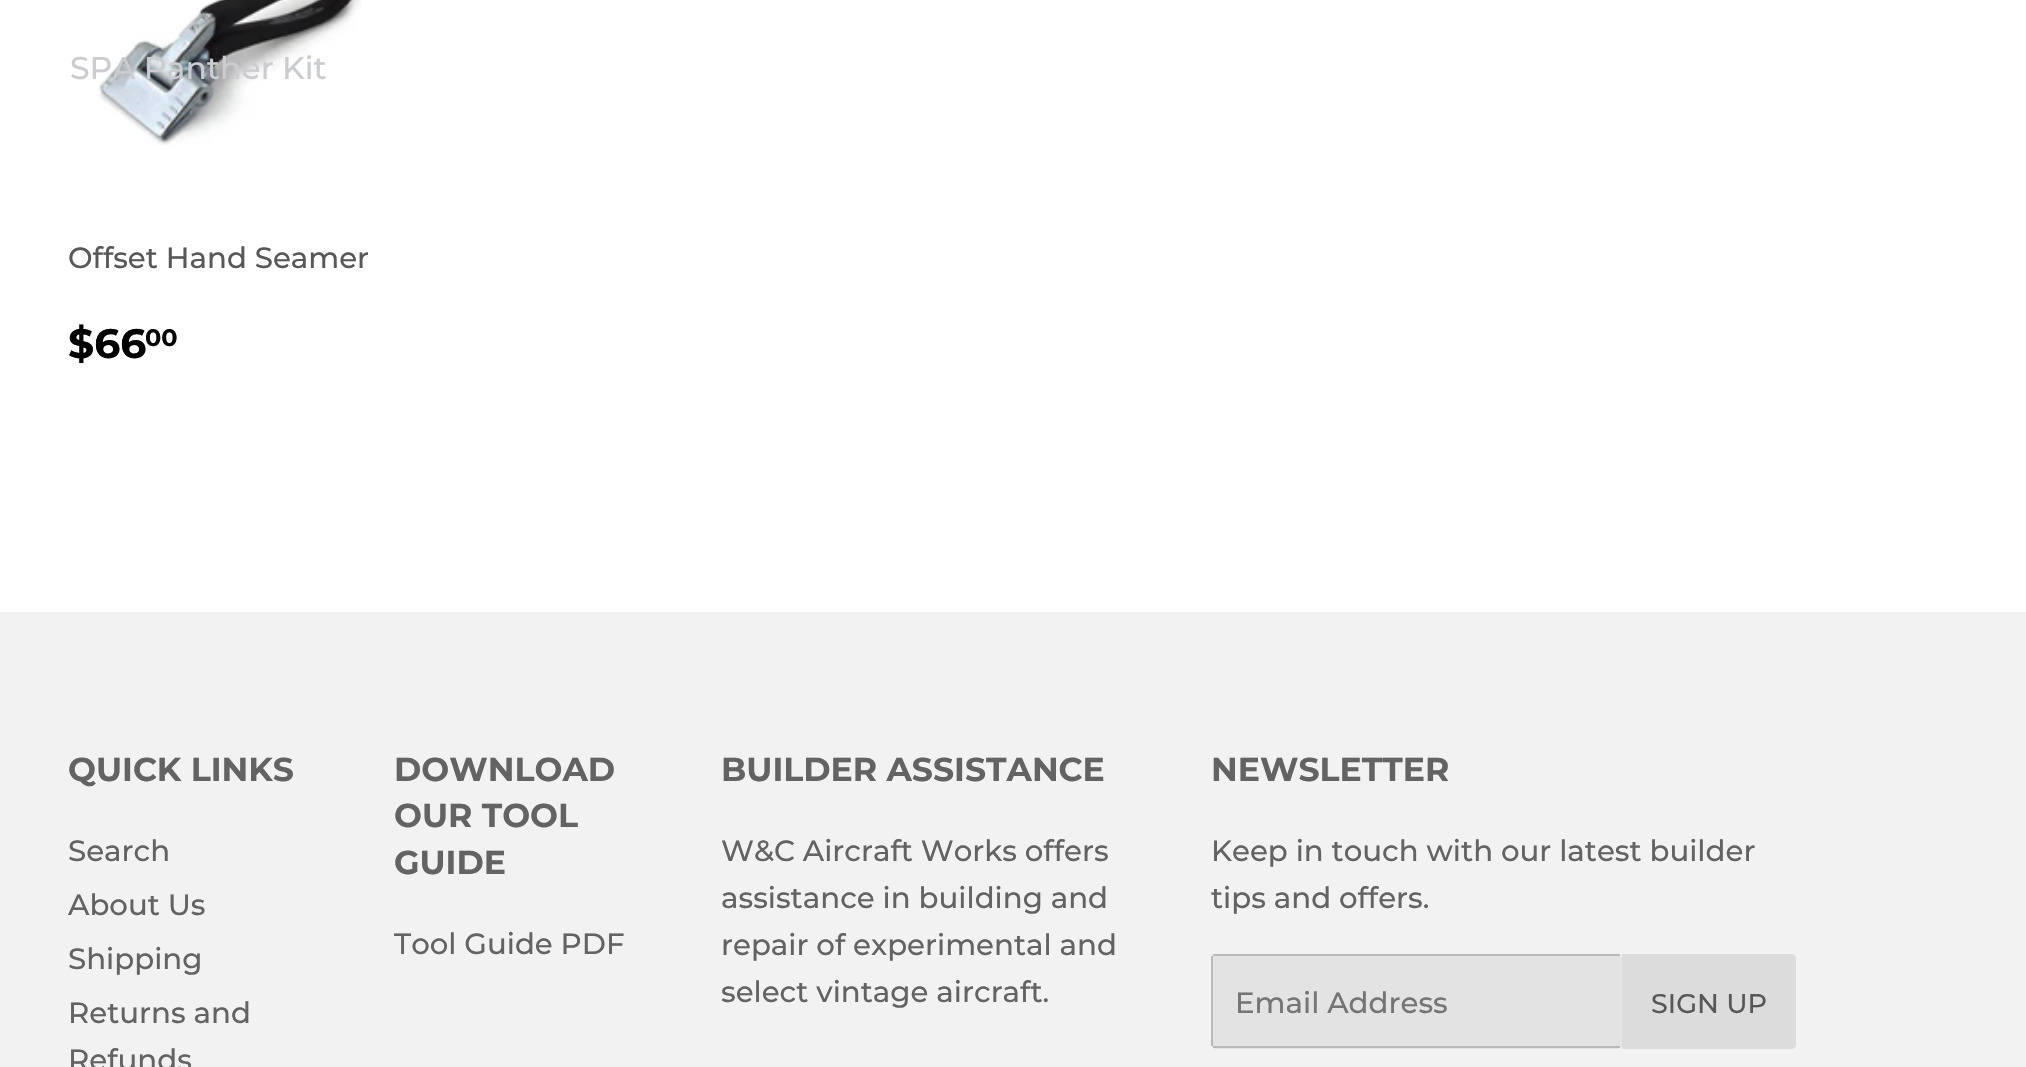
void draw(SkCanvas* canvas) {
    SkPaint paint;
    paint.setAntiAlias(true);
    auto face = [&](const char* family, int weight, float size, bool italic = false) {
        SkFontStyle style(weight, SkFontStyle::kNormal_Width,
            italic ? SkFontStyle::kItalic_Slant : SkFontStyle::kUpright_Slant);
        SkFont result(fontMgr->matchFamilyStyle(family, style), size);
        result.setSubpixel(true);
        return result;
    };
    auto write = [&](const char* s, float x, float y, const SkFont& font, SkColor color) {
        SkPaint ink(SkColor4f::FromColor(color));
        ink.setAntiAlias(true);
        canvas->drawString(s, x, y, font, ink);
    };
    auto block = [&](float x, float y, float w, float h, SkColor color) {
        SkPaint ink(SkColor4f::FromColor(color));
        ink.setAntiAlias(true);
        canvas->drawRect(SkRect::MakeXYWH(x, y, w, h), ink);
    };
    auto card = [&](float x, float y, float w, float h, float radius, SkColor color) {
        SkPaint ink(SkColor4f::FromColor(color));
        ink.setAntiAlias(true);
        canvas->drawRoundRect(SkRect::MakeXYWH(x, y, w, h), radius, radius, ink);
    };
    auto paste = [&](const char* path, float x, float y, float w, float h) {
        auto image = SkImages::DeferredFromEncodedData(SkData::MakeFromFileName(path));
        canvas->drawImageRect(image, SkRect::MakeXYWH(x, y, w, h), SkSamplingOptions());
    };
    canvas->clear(SK_ColorWHITE);
    paste("pic1.png", 96, 0, 266, 146);
    auto kFont1 = face("Montserrat", 500, 31.5f);
    write("SPA Panther Kit", 70, 79, kFont1, SkColorSetRGB(202, 204, 207));
    auto kFont2 = face("Montserrat", 500, 29.25f);
    write("Offset Hand Seamer", 68, 268, kFont2, SkColorSetRGB(88, 88, 88));
    auto kFont3 = face("Montserrat", 700, 41);
    write("$66", 68, 358, kFont3, SK_ColorBLACK);
    auto kFont4 = face("Montserrat", 700, 24);
    write("00", 145, 346, kFont4, SK_ColorBLACK);
    block(0, 612, 2026, 455, SkColorSetRGB(242, 242, 242));
    auto kFont5 = face("Montserrat", 700, 33.1f);
    write("QUICK LINKS", 68, 781, kFont5, SkColorSetRGB(99, 99, 99));
    write("Search", 68, 861, kFont2, SkColorSetRGB(99, 99, 99));
    write("About Us", 68, 915, kFont2, SkColorSetRGB(99, 99, 99));
    write("Shipping", 68, 969, kFont2, SkColorSetRGB(99, 99, 99));
    write("Returns and", 68, 1023, kFont2, SkColorSetRGB(99, 99, 99));
    write("Refunds", 68, 1070, kFont2, SkColorSetRGB(99, 99, 99));
    write("DOWNLOAD", 394, 781, kFont5, SkColorSetRGB(99, 99, 99));
    write("OUR TOOL", 394, 827, kFont5, SkColorSetRGB(99, 99, 99));
    write("GUIDE", 394, 874, kFont5, SkColorSetRGB(99, 99, 99));
    write("Tool Guide PDF", 394, 954, kFont2, SkColorSetRGB(99, 99, 99));
    write("BUILDER ASSISTANCE", 721, 781, kFont5, SkColorSetRGB(99, 99, 99));
    write("W&C Aircraft Works offers", 721, 861, kFont2, SkColorSetRGB(99, 99, 99));
    write("assistance in building and", 721, 908, kFont2, SkColorSetRGB(99, 99, 99));
    write("repair of experimental and", 721, 955, kFont2, SkColorSetRGB(99, 99, 99));
    write("select vintage aircraft.", 721, 1002, kFont2, SkColorSetRGB(99, 99, 99));
    write("NEWSLETTER", 1211, 781, kFont5, SkColorSetRGB(99, 99, 99));
    write("Keep in touch with our latest builder", 1211, 861, kFont2, SkColorSetRGB(99, 99, 99));
    write("tips and offers.", 1211, 908, kFont2, SkColorSetRGB(99, 99, 99));
    card(1211, 954, 411, 95, 5, SkColorSetRGB(227, 227, 227));
    block(1213, 954, 407, 2, SkColorSetRGB(185, 185, 185));
    block(1213, 1046, 407, 2, SkColorSetRGB(185, 185, 185));
    block(1211, 956, 2, 90, SkColorSetRGB(185, 185, 185));
    write("Email Address", 1235, 1013, kFont2, SkColorSetRGB(117, 117, 117));
    paint.setColor(SkColorSetRGB(220, 220, 220));
    canvas->drawPath(SkPathBuilder().moveTo(1622, 954).lineTo(1791, 954).cubicTo(1794, 954, 1796, 956, 1796, 959).lineTo(1796, 1044).cubicTo(1796, 1047, 1794, 1049, 1791, 1049).lineTo(1622, 1049).close().detach(), paint);
    auto kFont6 = face("Montserrat", 500, 27);
    write("SIGN UP", 1651, 1013, kFont6, SkColorSetRGB(88, 88, 88));
}
